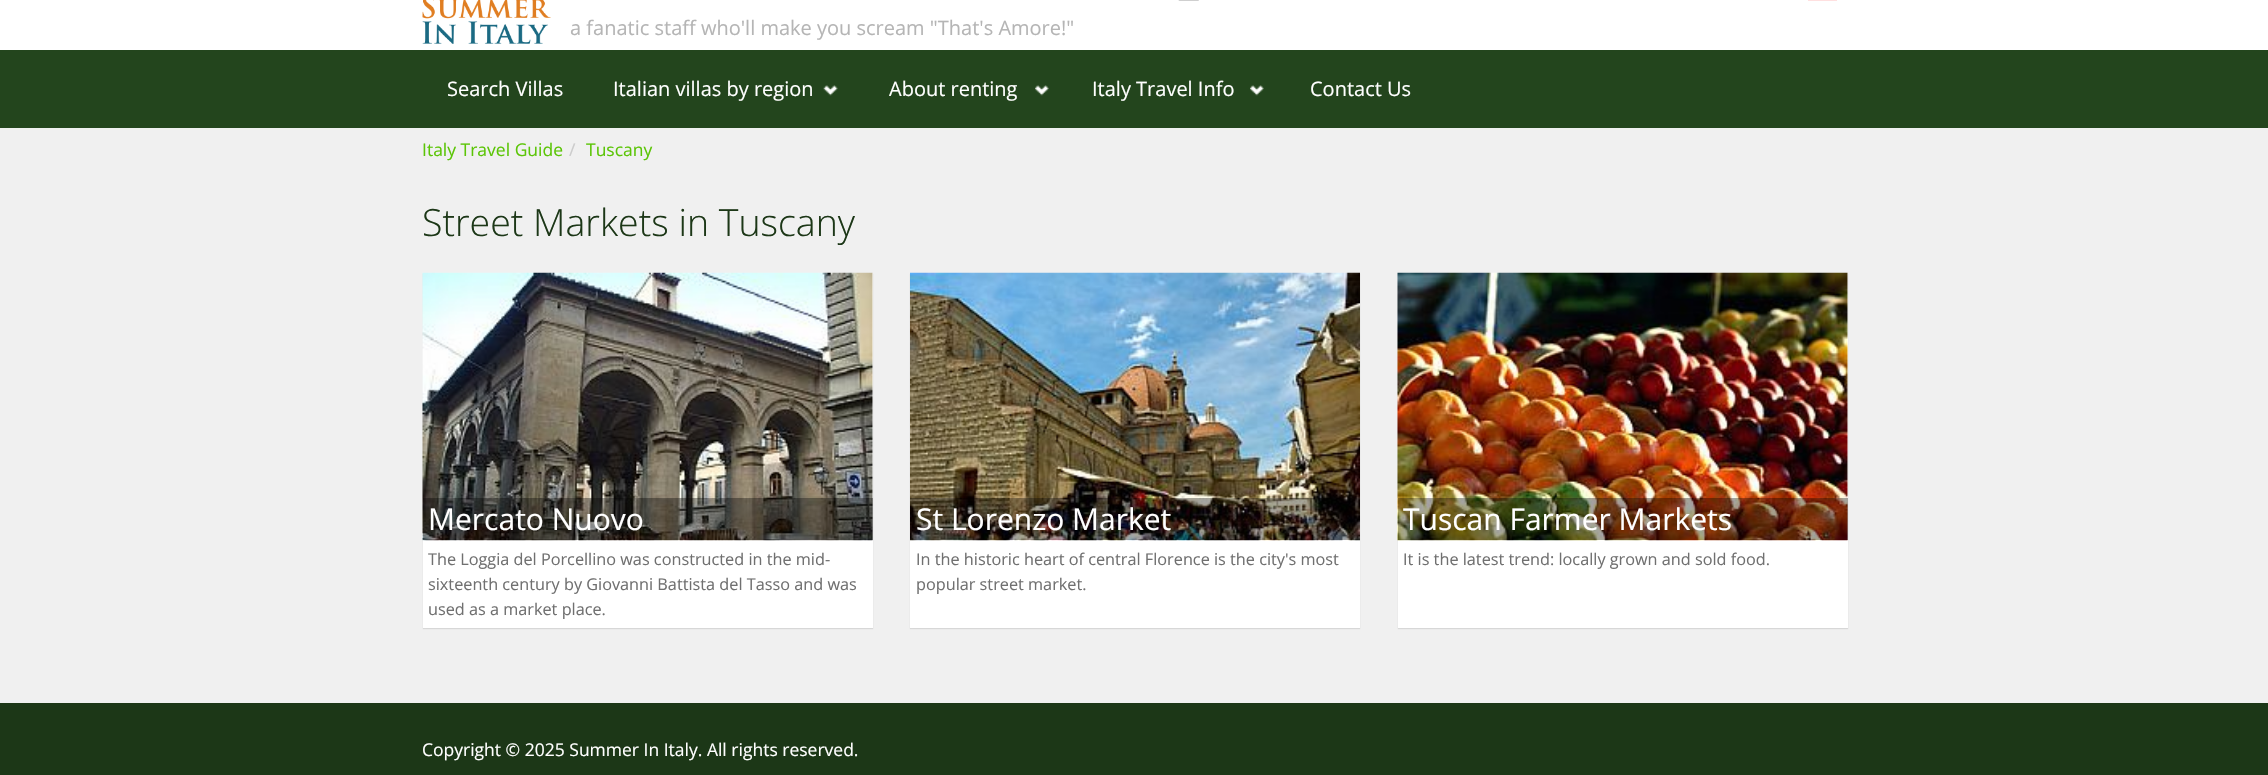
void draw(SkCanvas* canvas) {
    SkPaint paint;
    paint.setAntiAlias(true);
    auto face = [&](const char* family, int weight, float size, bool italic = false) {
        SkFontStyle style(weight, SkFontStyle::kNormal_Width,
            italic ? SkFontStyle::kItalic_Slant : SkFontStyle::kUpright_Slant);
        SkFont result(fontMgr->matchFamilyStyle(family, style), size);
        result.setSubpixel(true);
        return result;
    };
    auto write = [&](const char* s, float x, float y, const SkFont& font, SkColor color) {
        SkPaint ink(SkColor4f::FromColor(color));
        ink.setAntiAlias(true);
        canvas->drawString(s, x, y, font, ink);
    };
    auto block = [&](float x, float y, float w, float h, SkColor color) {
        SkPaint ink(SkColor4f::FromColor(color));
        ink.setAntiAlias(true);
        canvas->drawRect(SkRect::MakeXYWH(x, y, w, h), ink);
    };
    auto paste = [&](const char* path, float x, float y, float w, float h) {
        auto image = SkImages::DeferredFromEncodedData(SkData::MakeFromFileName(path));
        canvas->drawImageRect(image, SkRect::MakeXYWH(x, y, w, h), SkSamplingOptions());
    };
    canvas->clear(SkColorSetRGB(240, 240, 240));
    block(0, 0, 2268, 50, SK_ColorWHITE);
    paste("pic1.png", 1178, 0, 21, 1);
    block(1808, 0, 29, 1, SkColorSetRGB(255, 224, 224));
    paste("pic2.png", 422, 0, 129, 44);
    auto kFont1 = face("Open Sans", 400, 20);
    write("a fanatic staff who'll make you scream \"That's Amore!\"", 570, 35, kFont1, SkColorSetRGB(181, 181, 181));
    block(0, 50, 2268, 78, SkColorSetRGB(35, 69, 29));
    write("Search Villas", 447, 96, kFont1, SK_ColorWHITE);
    paste("pic3.png", 823, 85, 15, 11);
    write("Italian villas by region", 613, 96, kFont1, SK_ColorWHITE);
    paste("pic4.png", 1035, 85, 14, 11);
    write("About renting", 889, 96, kFont1, SK_ColorWHITE);
    paste("pic4.png", 1250, 85, 14, 11);
    write("Italy Travel Info", 1092, 96, kFont1, SK_ColorWHITE);
    write("Contact Us", 1310, 96, kFont1, SK_ColorWHITE);
    auto kFont2 = face("Open Sans", 400, 17.5f);
    write("Italy Travel Guide", 422, 156, kFont2, SkColorSetRGB(91, 197, 6));
    write("/", 569, 156, kFont2, SkColorSetRGB(204, 204, 204));
    write("Tuscany", 586, 156, kFont2, SkColorSetRGB(91, 197, 6));
    auto kFont3 = face("Open Sans", 300, 37.5f);
    write("Street Markets in Tuscany", 422, 236, kFont3, SkColorSetRGB(28, 55, 23));
    paint.setColor(SkColorSetARGB(26, 0, 0, 0));
    paint.setMaskFilter(SkMaskFilter::MakeBlur(kNormal_SkBlurStyle, 0.5f));
    canvas->drawRect(SkRect::MakeXYWH(423, 274, 450, 355), paint);
    paint.setMaskFilter(nullptr);
    block(423, 273, 450, 355, SK_ColorWHITE);
    paste("pic5.png", 422, 272, 451, 269);
    block(423, 498, 450, 42, SkColorSetARGB(89, 0, 0, 0));
    auto kFont4 = face("Open Sans", 400, 30);
    write("Mercato Nuovo", 428, 530, kFont4, SK_ColorWHITE);
    auto kFont5 = face("Open Sans", 400, 16.25f);
    write("The Loggia del Porcellino was constructed in the mid-", 428, 565, kFont5, SkColorSetRGB(112, 112, 112));
    write("sixteenth century by Giovanni Battista del Tasso and was", 428, 590, kFont5, SkColorSetRGB(112, 112, 112));
    write("used as a market place.", 428, 615, kFont5, SkColorSetRGB(112, 112, 112));
    paint.setMaskFilter(SkMaskFilter::MakeBlur(kNormal_SkBlurStyle, 0.5f));
    canvas->drawRect(SkRect::MakeXYWH(910, 274, 450, 355), paint);
    paint.setMaskFilter(nullptr);
    block(910, 540, 450, 88, SK_ColorWHITE);
    paste("pic6.png", 910, 272, 450, 269);
    block(910, 498, 450, 42, SkColorSetARGB(89, 0, 0, 0));
    write("St Lorenzo Market", 916, 530, kFont4, SK_ColorWHITE);
    write("In the historic heart of central Florence is the city's most", 916, 565, kFont5, SkColorSetRGB(112, 112, 112));
    write("popular street market.", 916, 590, kFont5, SkColorSetRGB(112, 112, 112));
    paint.setMaskFilter(SkMaskFilter::MakeBlur(kNormal_SkBlurStyle, 0.5f));
    canvas->drawRect(SkRect::MakeXYWH(1398, 274, 450, 355), paint);
    paint.setMaskFilter(nullptr);
    block(1398, 273, 450, 355, SK_ColorWHITE);
    paste("pic7.png", 1397, 272, 451, 269);
    block(1398, 498, 450, 42, SkColorSetARGB(89, 0, 0, 0));
    write("Tuscan Farmer Markets", 1403, 530, kFont4, SK_ColorWHITE);
    write("It is the latest trend: locally grown and sold food.", 1403, 565, kFont5, SkColorSetRGB(112, 112, 112));
    block(0, 703, 2268, 72, SkColorSetRGB(28, 55, 23));
    write("Copyright © 2025 Summer In Italy. All rights reserved.", 422, 756, kFont2, SK_ColorWHITE);
}
